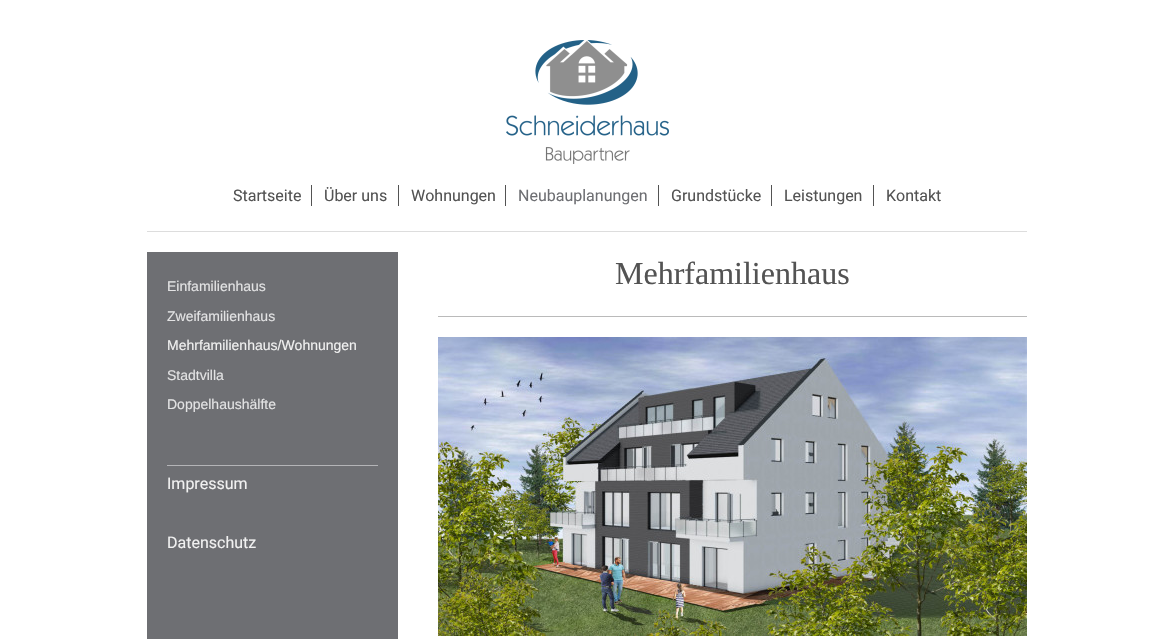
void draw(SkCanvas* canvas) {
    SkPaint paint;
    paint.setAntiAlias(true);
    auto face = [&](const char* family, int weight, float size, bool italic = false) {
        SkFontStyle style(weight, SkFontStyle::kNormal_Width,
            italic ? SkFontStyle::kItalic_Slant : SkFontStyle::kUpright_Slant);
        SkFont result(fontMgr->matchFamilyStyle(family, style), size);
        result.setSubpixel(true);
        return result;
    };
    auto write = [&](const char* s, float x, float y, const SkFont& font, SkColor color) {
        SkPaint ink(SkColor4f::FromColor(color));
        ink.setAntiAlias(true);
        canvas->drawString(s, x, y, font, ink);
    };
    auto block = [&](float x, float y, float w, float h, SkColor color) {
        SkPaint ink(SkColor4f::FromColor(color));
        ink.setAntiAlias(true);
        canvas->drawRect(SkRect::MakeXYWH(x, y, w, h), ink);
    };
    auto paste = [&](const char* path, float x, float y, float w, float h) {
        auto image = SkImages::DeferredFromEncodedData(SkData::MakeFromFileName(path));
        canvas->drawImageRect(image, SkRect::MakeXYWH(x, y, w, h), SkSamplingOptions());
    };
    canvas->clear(SK_ColorWHITE);
    paste("pic1.png", 506, 40, 163, 124);
    block(147, 231, 880, 1, SkColorSetRGB(221, 221, 221));
    block(311, 185, 1, 21, SkColorSetRGB(83, 83, 83));
    auto kFont1 = face("Roboto", 400, 16);
    write("Startseite", 233, 201, kFont1, SkColorSetRGB(83, 83, 83));
    block(398, 185, 1, 21, SkColorSetRGB(83, 83, 83));
    write("Über uns", 324, 201, kFont1, SkColorSetRGB(83, 83, 83));
    block(505, 185, 1, 21, SkColorSetRGB(83, 83, 83));
    write("Wohnungen", 411, 201, kFont1, SkColorSetRGB(83, 83, 83));
    block(658, 185, 1, 21, SkColorSetRGB(83, 83, 83));
    write("Neubauplanungen", 518, 201, kFont1, SkColorSetRGB(110, 111, 115));
    block(771, 185, 1, 21, SkColorSetRGB(83, 83, 83));
    write("Grundstücke", 671, 201, kFont1, SkColorSetRGB(83, 83, 83));
    block(873, 185, 1, 21, SkColorSetRGB(83, 83, 83));
    write("Leistungen", 784, 201, kFont1, SkColorSetRGB(83, 83, 83));
    write("Kontakt", 886, 201, kFont1, SkColorSetRGB(83, 83, 83));
    auto kFont2 = face("Liberation Serif", 400, 32);
    write("Mehrfamilienhaus", 615, 284, kFont2, SkColorSetRGB(83, 83, 83));
    block(438, 316, 589, 1, SkColorSetRGB(186, 186, 186));
    paste("pic2.png", 438, 337, 589, 299);
    block(147, 252, 251, 387, SkColorSetRGB(110, 111, 115));
    auto kFont3 = face("Liberation Sans", 400, 14);
    write("Einfamilienhaus", 167, 291, kFont3, SkColorSetRGB(227, 227, 228));
    write("Zweifamilienhaus", 167, 321, kFont3, SkColorSetRGB(227, 227, 228));
    write("Mehrfamilienhaus/Wohnungen", 167, 350, kFont3, SkColorSetRGB(241, 241, 241));
    write("Stadtvilla", 167, 380, kFont3, SkColorSetRGB(227, 227, 228));
    write("Doppelhaushälfte", 167, 409, kFont3, SkColorSetRGB(227, 227, 228));
    block(167, 465, 211, 1, SkColorSetRGB(180, 180, 183));
    write("Impressum", 167, 489, kFont1, SkColorSetRGB(241, 241, 241));
    write("Datenschutz", 167, 548, kFont1, SkColorSetRGB(241, 241, 241));
}
